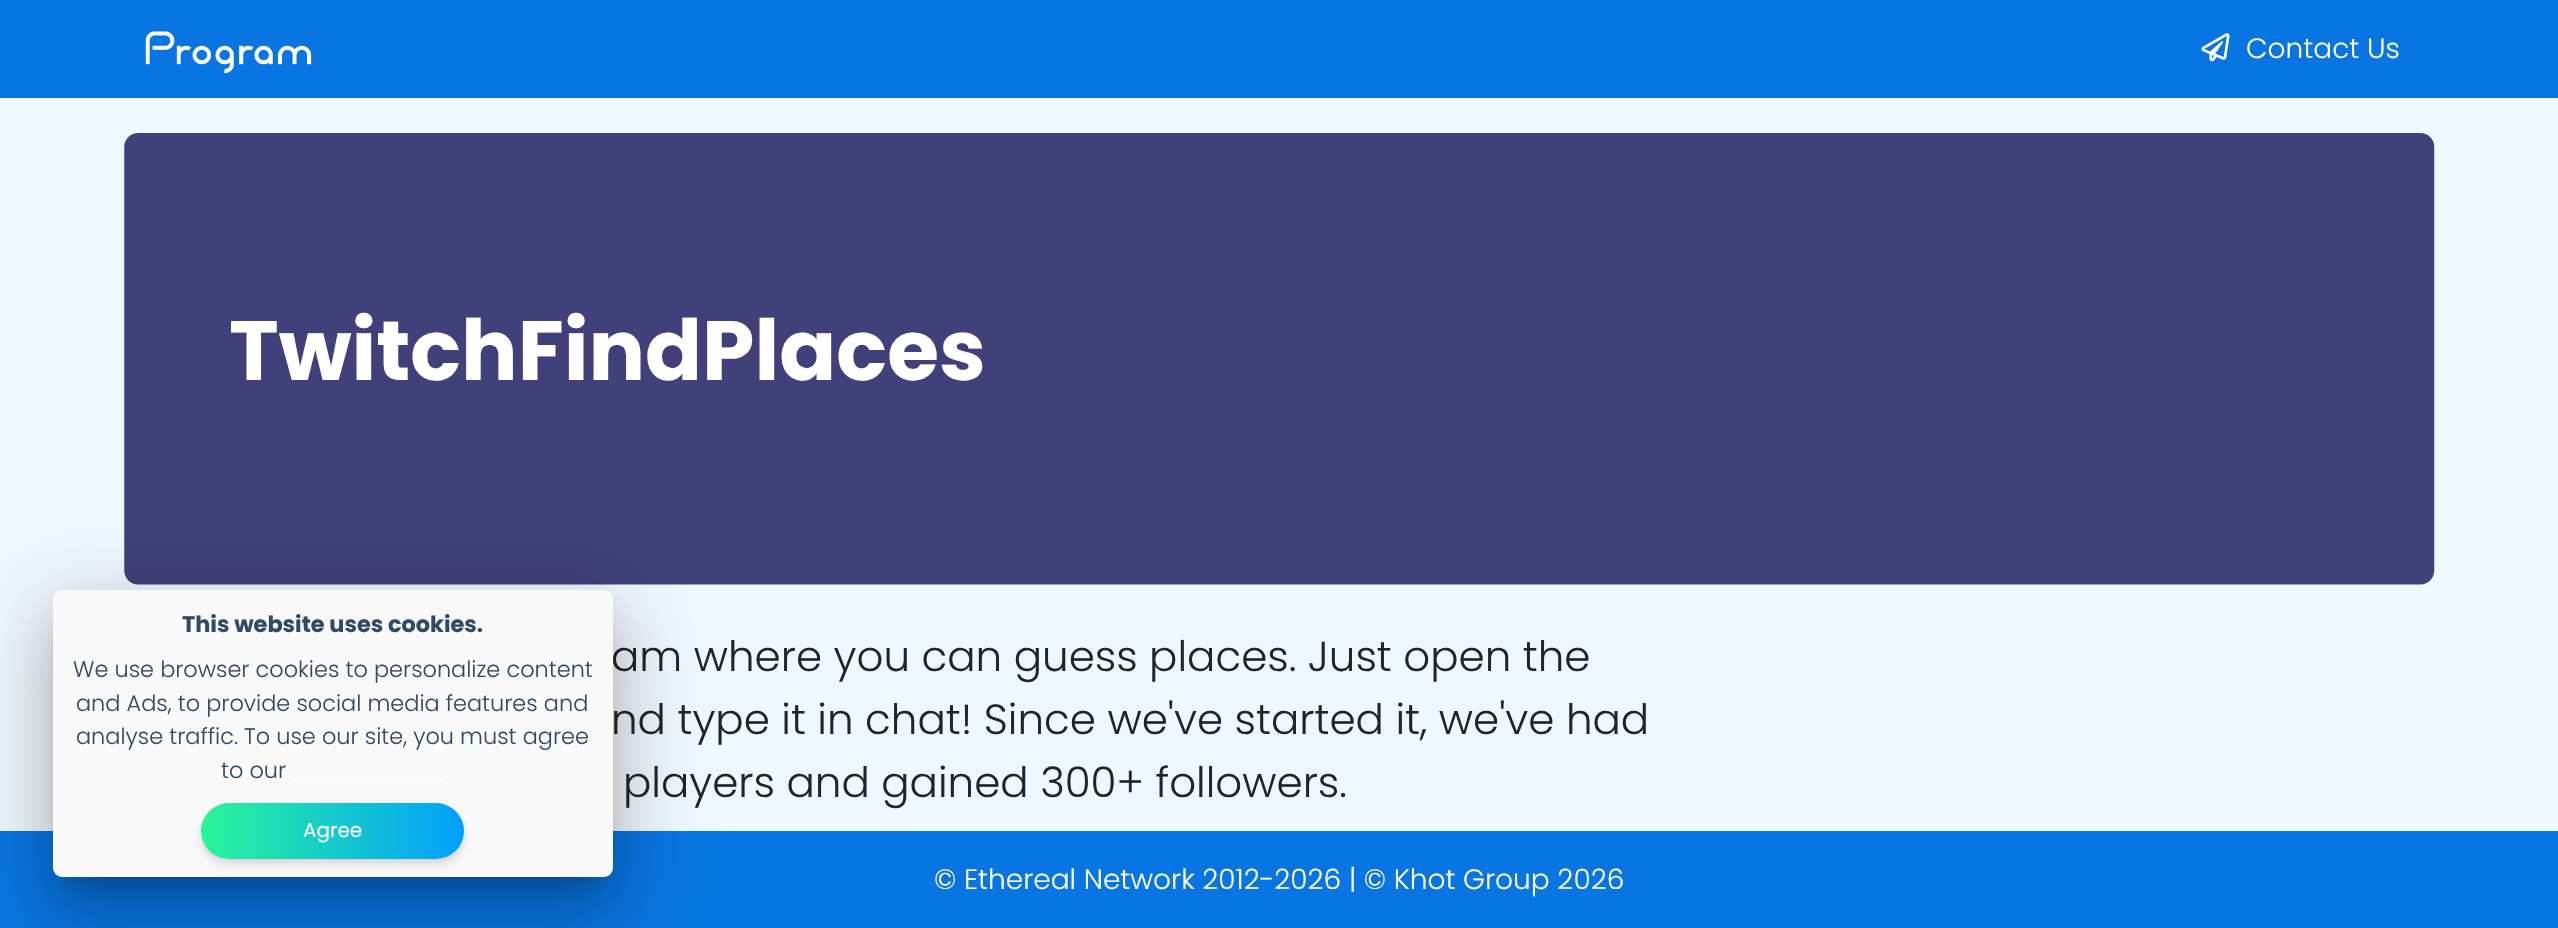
void draw(SkCanvas* canvas) {
    SkPaint paint;
    paint.setAntiAlias(true);
    auto face = [&](const char* family, int weight, float size, bool italic = false) {
        SkFontStyle style(weight, SkFontStyle::kNormal_Width,
            italic ? SkFontStyle::kItalic_Slant : SkFontStyle::kUpright_Slant);
        SkFont result(fontMgr->matchFamilyStyle(family, style), size);
        result.setSubpixel(true);
        return result;
    };
    auto write = [&](const char* s, float x, float y, const SkFont& font, SkColor color) {
        SkPaint ink(SkColor4f::FromColor(color));
        ink.setAntiAlias(true);
        canvas->drawString(s, x, y, font, ink);
    };
    auto block = [&](float x, float y, float w, float h, SkColor color) {
        SkPaint ink(SkColor4f::FromColor(color));
        ink.setAntiAlias(true);
        canvas->drawRect(SkRect::MakeXYWH(x, y, w, h), ink);
    };
    auto card = [&](float x, float y, float w, float h, float radius, SkColor color) {
        SkPaint ink(SkColor4f::FromColor(color));
        ink.setAntiAlias(true);
        canvas->drawRoundRect(SkRect::MakeXYWH(x, y, w, h), radius, radius, ink);
    };
    auto paste = [&](const char* path, float x, float y, float w, float h) {
        auto image = SkImages::DeferredFromEncodedData(SkData::MakeFromFileName(path));
        canvas->drawImageRect(image, SkRect::MakeXYWH(x, y, w, h), SkSamplingOptions());
    };
    canvas->clear(SkColorSetRGB(240, 248, 255));
    block(0, 0, 2558, 98, SkColorSetRGB(8, 117, 226));
    paste("pic1.png", 145, 31, 167, 43);
    paste("pic2.png", 2201, 33, 29, 29);
    auto kFont1 = face("Poppins", 300, 28);
    write("Contact Us", 2246, 58, kFont1, SK_ColorWHITE);
    card(124, 133, 2310, 452, 14, SkColorSetRGB(248, 249, 250));
    paste("pic3.png", 124, 133, 2311, 452);
    auto kFont2 = face("Poppins", 700, 84);
    write("TwitchFindPlaces", 229, 380, kFont2, SK_ColorWHITE);
    auto kFont3 = face("Poppins", 300, 42);
    write("am where you can guess places. Just open the", 611, 671, kFont3, SkColorSetRGB(33, 37, 41));
    write("nd type it in chat! Since we've started it, we've had", 611, 734, kFont3, SkColorSetRGB(33, 37, 41));
    write("players and gained 300+ followers.", 623, 797, kFont3, SkColorSetRGB(33, 37, 41));
    block(0, 831, 2558, 97, SkColorSetRGB(8, 117, 226));
    paint.setColor(SkColorSetARGB(31, 0, 0, 0));
    paint.setMaskFilter(SkMaskFilter::MakeBlur(kNormal_SkBlurStyle, 40));
    canvas->drawRoundRect(SkRect::MakeXYWH(39, 592, 588, 315), 23, 23, paint);
    paint.setMaskFilter(nullptr);
    paint.setColor(SkColorSetARGB(36, 0, 0, 0));
    paint.setMaskFilter(SkMaskFilter::MakeBlur(kNormal_SkBlurStyle, 33));
    canvas->drawRoundRect(SkRect::MakeXYWH(47, 627, 571, 297), 14, 14, paint);
    paint.setMaskFilter(nullptr);
    paint.setColor(SkColorSetARGB(51, 0, 0, 0));
    paint.setMaskFilter(SkMaskFilter::MakeBlur(kNormal_SkBlurStyle, 13));
    canvas->drawRect(SkRect::MakeXYWH(65, 621, 535, 263), paint);
    paint.setMaskFilter(nullptr);
    card(53, 590, 560, 287, 9, SkColorSetRGB(249, 249, 250));
    auto kFont4 = face("Poppins", 700, 22.4f);
    write("This website uses cookies.", 182, 632, kFont4, SkColorSetRGB(50, 75, 100));
    auto kFont5 = face("Poppins", 300, 22.4f);
    write("We use browser cookies to personalize content", 73, 677, kFont5, SkColorSetRGB(50, 75, 100));
    write("and Ads, to provide social media features and", 76, 711, kFont5, SkColorSetRGB(50, 75, 100));
    write("analyse traffic. To use our site, you must agree", 76, 744, kFont5, SkColorSetRGB(50, 75, 100));
    write("to our", 221, 778, kFont5, SkColorSetRGB(50, 75, 100));
    block(292, 779, 153, 2, SK_ColorWHITE);
    paint.setColor(SkColorSetARGB(20, 0, 0, 0));
    paint.setMaskFilter(SkMaskFilter::MakeBlur(kNormal_SkBlurStyle, 2.5f));
    canvas->drawRoundRect(SkRect::MakeXYWH(201, 805, 263, 56), 28, 28, paint);
    paint.setMaskFilter(nullptr);
    paint.setColor(SkColorSetARGB(28, 50, 50, 93));
    paint.setMaskFilter(SkMaskFilter::MakeBlur(kNormal_SkBlurStyle, 5));
    canvas->drawRoundRect(SkRect::MakeXYWH(201, 810, 263, 56), 28, 28, paint);
    paint.setMaskFilter(nullptr);
    {
        const SkColor colors[] = {SkColorSetRGB(42, 245, 152), SkColorSetRGB(0, 158, 253), SkColorSetRGB(42, 245, 152)};
        const float stops[] = {0, 0.51f, 1};
        const SkPoint ends[] = {{201, 831}, {726, 831}};
        paint.setShader(SkGradientShader::MakeLinear(ends, colors, stops, 3, SkTileMode::kClamp));
        paint.setAlpha(255);
    }
    canvas->drawRoundRect(SkRect::MakeXYWH(201, 803, 263, 56), 28, 28, paint);
    auto kFont6 = face("Poppins", 400, 20);
    write("Agree", 303, 837, kFont6, SkColorSetRGB(249, 249, 250));
    write("© Ethereal Network 2012-2026 | © Khot Group 2026", 934, 889, kFont1, SK_ColorWHITE);
}
